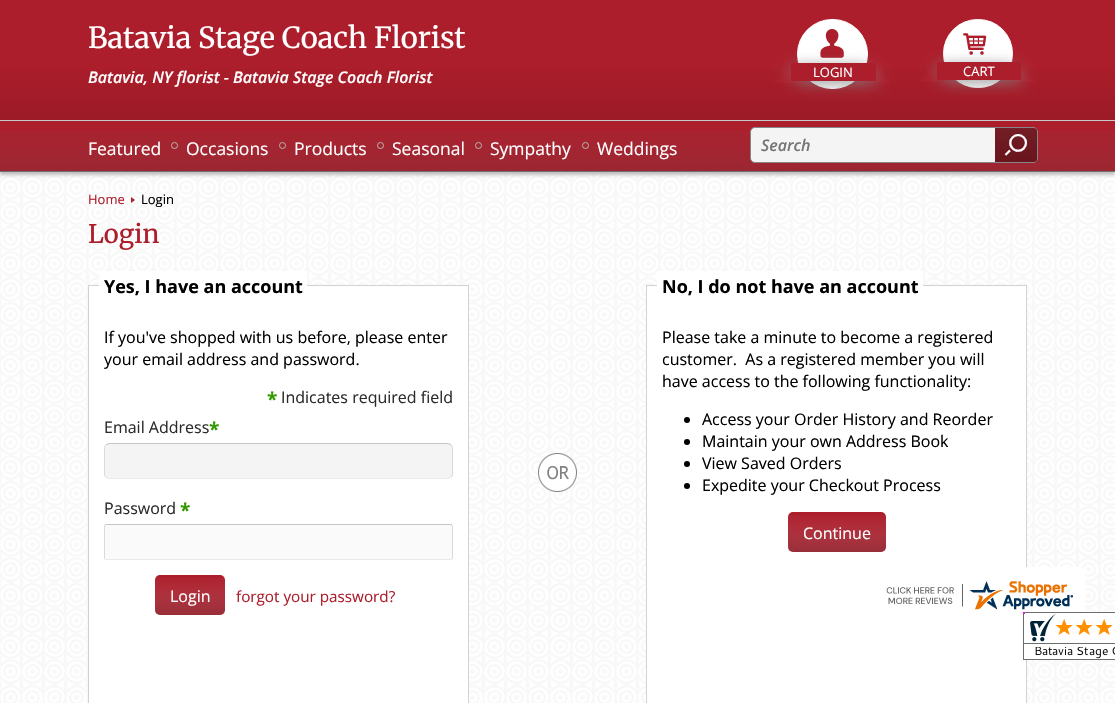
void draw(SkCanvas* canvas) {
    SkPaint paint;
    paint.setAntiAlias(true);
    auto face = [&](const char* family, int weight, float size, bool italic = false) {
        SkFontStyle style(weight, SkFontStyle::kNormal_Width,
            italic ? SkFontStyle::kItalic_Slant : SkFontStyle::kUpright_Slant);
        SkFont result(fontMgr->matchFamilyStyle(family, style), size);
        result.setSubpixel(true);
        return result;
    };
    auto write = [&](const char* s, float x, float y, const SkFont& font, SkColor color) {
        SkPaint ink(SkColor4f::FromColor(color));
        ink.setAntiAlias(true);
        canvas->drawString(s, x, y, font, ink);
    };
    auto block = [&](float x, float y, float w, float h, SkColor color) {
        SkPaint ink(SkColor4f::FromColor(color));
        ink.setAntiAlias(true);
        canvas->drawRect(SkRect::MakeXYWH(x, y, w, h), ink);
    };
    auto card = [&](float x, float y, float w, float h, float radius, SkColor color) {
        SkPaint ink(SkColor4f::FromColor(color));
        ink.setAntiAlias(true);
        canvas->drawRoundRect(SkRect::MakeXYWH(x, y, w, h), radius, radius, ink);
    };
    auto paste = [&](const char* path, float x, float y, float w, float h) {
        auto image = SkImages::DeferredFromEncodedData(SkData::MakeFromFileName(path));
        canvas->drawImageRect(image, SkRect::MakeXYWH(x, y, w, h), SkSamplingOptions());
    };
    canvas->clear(SK_ColorWHITE);
    block(0, 0, 1115, 9, SkColorSetRGB(173, 30, 44));
    paste("pic6.png", 0, 175, 1115, 528);
    paint.setColor(SkColorSetARGB(64, 0, 0, 0));
    paint.setMaskFilter(SkMaskFilter::MakeBlur(kNormal_SkBlurStyle, 1.5f));
    canvas->drawRect(SkRect::MakeXYWH(0, 12, 1115, 163), paint);
    paint.setMaskFilter(nullptr);
    block(0, 9, 1115, 111, SkColorSetRGB(173, 30, 44));
    paste("pic1.png", 0, 69, 1115, 51);
    block(0, 171, 1115, 1, SkColorSetRGB(114, 113, 113));
    auto kFont1 = face("Merriweather", 400, 29);
    write("Batavia Stage Coach Florist", 88, 48, kFont1, SK_ColorWHITE);
    auto kFont2 = face("Open Sans", 600, 16, true);
    write("Batavia, NY florist - Batavia Stage Coach Florist", 88, 83, kFont2, SK_ColorWHITE);
    paint.setColor(SK_ColorWHITE);
    canvas->drawRoundRect(SkRect::MakeXYWH(797.5f, 19.5f, 70, 69), 34.5f, 34.5f, paint);
    paint.setStyle(SkPaint::kStroke_Style);
    paint.setStrokeWidth(1);
    canvas->drawRoundRect(SkRect::MakeXYWH(797.5f, 19.5f, 70, 69), 34.5f, 34.5f, paint);
    paste("pic2.png", 820, 29, 24, 29);
    paint.setStyle(SkPaint::kFill_Style);
    paint.setColor(SkColorSetRGB(173, 30, 44));
    canvas->drawPath(SkPathBuilder().moveTo(773, 63).lineTo(793, 63).lineTo(783, 73).close().detach(), paint);
    block(783, 69, 10, 14, SkColorSetRGB(173, 30, 44));
    canvas->drawPath(SkPathBuilder().moveTo(793, 83).lineTo(773, 83).lineTo(783, 73).close().detach(), paint);
    canvas->drawPath(SkPathBuilder().moveTo(871, 63).lineTo(891, 63).lineTo(881, 73).close().moveTo(891, 83).lineTo(871, 83).lineTo(881, 73).close().detach(), paint);
    block(871, 69, 9, 14, SkColorSetRGB(173, 30, 44));
    paint.setColor(SkColorSetARGB(204, 128, 128, 128));
    paint.setMaskFilter(SkMaskFilter::MakeBlur(kNormal_SkBlurStyle, 7.5f));
    canvas->drawRect(SkRect::MakeXYWH(790, 67, 77, 10), paint);
    paint.setMaskFilter(nullptr);
    paint.setColor(SkColorSetARGB(204, 133, 133, 133));
    paint.setMaskFilter(SkMaskFilter::MakeBlur(kNormal_SkBlurStyle, 7.5f));
    canvas->drawRect(SkRect::MakeXYWH(800, 73, 77, 10), paint);
    paint.setMaskFilter(nullptr);
    block(791, 63, 85, 18, SkColorSetRGB(173, 30, 44));
    auto kFont3 = face("Open Sans", 400, 13);
    write("LOGIN", 813, 77, kFont3, SK_ColorWHITE);
    paint.setColor(SK_ColorWHITE);
    canvas->drawRoundRect(SkRect::MakeXYWH(943.5f, 19.5f, 69, 68), 34, 34, paint);
    paint.setStyle(SkPaint::kStroke_Style);
    canvas->drawRoundRect(SkRect::MakeXYWH(943.5f, 19.5f, 69, 68), 34, 34, paint);
    paste("pic3.png", 963, 33, 24, 22);
    paint.setStyle(SkPaint::kFill_Style);
    paint.setColor(SkColorSetRGB(173, 30, 44));
    canvas->drawPath(SkPathBuilder().moveTo(919, 62).lineTo(939, 62).lineTo(929, 72).close().detach(), paint);
    block(929, 69, 10, 13, SkColorSetRGB(173, 30, 44));
    canvas->drawPath(SkPathBuilder().moveTo(939, 82).lineTo(919, 82).lineTo(929, 72).close().detach(), paint);
    canvas->drawPath(SkPathBuilder().moveTo(1016, 62).lineTo(1036, 62).lineTo(1026, 72).close().moveTo(1036, 82).lineTo(1016, 82).lineTo(1026, 72).close().detach(), paint);
    block(1016, 69, 9, 13, SkColorSetRGB(173, 30, 44));
    paint.setColor(SkColorSetARGB(204, 128, 128, 128));
    paint.setMaskFilter(SkMaskFilter::MakeBlur(kNormal_SkBlurStyle, 7.5f));
    canvas->drawRect(SkRect::MakeXYWH(936, 66, 76, 10), paint);
    paint.setMaskFilter(nullptr);
    paint.setColor(SkColorSetARGB(204, 133, 133, 133));
    paint.setMaskFilter(SkMaskFilter::MakeBlur(kNormal_SkBlurStyle, 7.5f));
    canvas->drawRect(SkRect::MakeXYWH(946, 72, 76, 10), paint);
    paint.setMaskFilter(nullptr);
    block(937, 62, 84, 18, SkColorSetRGB(173, 30, 44));
    write("CART", 963, 76, kFont3, SK_ColorWHITE);
    block(0, 121, 1115, 50, SkColorSetRGB(173, 30, 44));
    paste("pic5.png", 0, 131, 1115, 40);
    auto kFont4 = face("Open Sans", 400, 17.5f);
    write("Featured", 88, 155, kFont4, SK_ColorWHITE);
    paint.setStyle(SkPaint::kStroke_Style);
    paint.setColor(SkColorSetRGB(183, 181, 174));
    canvas->drawCircle(174.5f, 145.5f, 3, paint);
    write("Occasions", 186, 155, kFont4, SK_ColorWHITE);
    canvas->drawCircle(282.5f, 145.5f, 3, paint);
    write("Products", 294, 155, kFont4, SK_ColorWHITE);
    canvas->drawCircle(380.5f, 145.5f, 3, paint);
    write("Seasonal", 392, 155, kFont4, SK_ColorWHITE);
    canvas->drawCircle(478.5f, 145.5f, 3, paint);
    write("Sympathy", 490, 155, kFont4, SK_ColorWHITE);
    canvas->drawCircle(585.5f, 145.5f, 3, paint);
    write("Weddings", 597, 155, kFont4, SK_ColorWHITE);
    paint.setStyle(SkPaint::kFill_Style);
    paint.setColor(SkColorSetRGB(244, 244, 244));
    canvas->drawRoundRect(SkRect::MakeXYWH(750.5f, 127.5f, 287, 35), 4.5f, 4.5f, paint);
    paint.setStyle(SkPaint::kStroke_Style);
    paint.setColor(SkColorSetRGB(134, 134, 134));
    canvas->drawRoundRect(SkRect::MakeXYWH(750.5f, 127.5f, 287, 35), 4.5f, 4.5f, paint);
    write("Search", 761, 151, kFont2, SkColorSetRGB(117, 117, 117));
    paint.setStyle(SkPaint::kFill_Style);
    paint.setColor(SkColorSetRGB(173, 30, 44));
    canvas->drawPath(SkPathBuilder().moveTo(995, 128).lineTo(1034, 128).cubicTo(1035.5f, 128, 1037, 129.5f, 1037, 131).lineTo(1037, 159).cubicTo(1037, 160.5f, 1035.5f, 162, 1034, 162).lineTo(995, 162).close().detach(), paint);
    paste("pic4.png", 995, 128, 42, 34);
    auto kFont5 = face("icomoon", 400, 24);
    write("'", 1004, 155, kFont5, SK_ColorWHITE);
    block(0, 120, 1115, 1, SkColorSetRGB(201, 201, 201));
    write("Home", 88, 204, kFont3, SkColorSetRGB(173, 30, 44));
    canvas->drawPath(SkPathBuilder().moveTo(131, 203).lineTo(131, 197).lineTo(135, 200).close().detach(), paint);
    write("Login", 141, 204, kFont3, SK_ColorBLACK);
    auto kFont6 = face("Merriweather", 400, 25.5f);
    write("Login", 88, 243, kFont6, SkColorSetRGB(173, 30, 44));
    paste("pic7.png", 538, 453, 39, 39);
    paint.setColor(SK_ColorWHITE);
    canvas->drawRect(SkRect::MakeXYWH(88.5f, 285.5f, 380, 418), paint);
    paint.setStyle(SkPaint::kStroke_Style);
    paint.setColor(SkColorSetRGB(210, 210, 210));
    canvas->drawRect(SkRect::MakeXYWH(88.5f, 285.5f, 380, 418), paint);
    block(99, 271, 208, 15, SK_ColorWHITE);
    auto kFont7 = face("Open Sans", 700, 18);
    write("Yes, I have an account", 104, 293, kFont7, SK_ColorBLACK);
    auto kFont8 = face("Open Sans", 400, 16);
    write("If you've shopped with us before, please enter", 104, 343, kFont8, SK_ColorBLACK);
    write("your email address and password.", 104, 365, kFont8, SK_ColorBLACK);
    auto kFont9 = face("Open Sans", 700, 19);
    write("*", 267, 406, kFont9, SkColorSetRGB(51, 153, 0));
    write("Indicates required field", 281, 403, kFont8, SkColorSetRGB(43, 43, 43));
    write("Email Address", 104, 433, kFont8, SkColorSetRGB(43, 43, 43));
    write("*", 209, 436, kFont9, SkColorSetRGB(51, 153, 0));
    card(104, 443, 349, 36, 5, SkColorSetRGB(244, 244, 244));
    paint.setColor(SkColorSetRGB(198, 198, 198));
    canvas->drawPath(SkPathBuilder().moveTo(106, 445).lineTo(109, 443.5f).lineTo(448, 443.5f).lineTo(451, 445).detach(), paint);
    paint.setColor(SkColorSetRGB(218, 218, 218));
    canvas->drawPath(SkPathBuilder().moveTo(451, 445).cubicTo(452, 445.5f, 452.5f, 447, 452.5f, 448).lineTo(452.5f, 474).cubicTo(452.5f, 475, 452, 476.5f, 451, 477).detach(), paint);
    paint.setColor(SkColorSetRGB(234, 234, 234));
    canvas->drawPath(SkPathBuilder().moveTo(451, 477).lineTo(448, 478.5f).lineTo(109, 478.5f).lineTo(106, 477).detach(), paint);
    paint.setColor(SkColorSetRGB(218, 218, 218));
    canvas->drawPath(SkPathBuilder().moveTo(106, 477).cubicTo(105, 476.5f, 104.5f, 475, 104.5f, 474).lineTo(104.5f, 448).cubicTo(104.5f, 447, 105, 445.5f, 106, 445).detach(), paint);
    write("Password", 104, 514, kFont8, SkColorSetRGB(43, 43, 43));
    write("*", 180, 517, kFont9, SkColorSetRGB(51, 153, 0));
    card(104, 524, 349, 36, 2, SkColorSetRGB(250, 250, 250));
    paint.setColor(SkColorSetRGB(198, 198, 198));
    canvas->drawPath(SkPathBuilder().moveTo(105, 525).lineTo(106, 524.5f).lineTo(451, 524.5f).lineTo(452, 525).detach(), paint);
    paint.setColor(SkColorSetRGB(218, 218, 218));
    canvas->drawPath(SkPathBuilder().moveTo(452, 525).lineTo(452.5f, 526).lineTo(452.5f, 558).lineTo(452, 559).detach(), paint);
    paint.setColor(SkColorSetRGB(234, 234, 234));
    canvas->drawPath(SkPathBuilder().moveTo(452, 559).lineTo(451, 559.5f).lineTo(106, 559.5f).lineTo(105, 559).detach(), paint);
    paint.setColor(SkColorSetRGB(218, 218, 218));
    canvas->drawPath(SkPathBuilder().moveTo(105, 559).lineTo(104.5f, 558).lineTo(104.5f, 526).lineTo(105, 525).detach(), paint);
    card(155, 575, 70, 40, 5, SkColorSetRGB(173, 30, 44));
    paste("pic8.png", 155, 578, 70, 37);
    write("Login", 170, 602, kFont8, SK_ColorWHITE);
    auto kFont10 = face("Open Sans", 400, 15.25f);
    write("forgot your password?", 236, 602, kFont10, SkColorSetRGB(173, 30, 44));
    paint.setStyle(SkPaint::kFill_Style);
    paint.setColor(SK_ColorWHITE);
    canvas->drawRect(SkRect::MakeXYWH(646.5f, 285.5f, 380, 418), paint);
    paint.setStyle(SkPaint::kStroke_Style);
    paint.setColor(SkColorSetRGB(210, 210, 210));
    canvas->drawRect(SkRect::MakeXYWH(646.5f, 285.5f, 380, 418), paint);
    block(657, 271, 266, 15, SK_ColorWHITE);
    write("No, I do not have an account", 662, 293, kFont7, SK_ColorBLACK);
    write("Please take a minute to become a registered", 662, 343, kFont8, SK_ColorBLACK);
    write("customer.  As a registered member you will", 662, 365, kFont8, SK_ColorBLACK);
    write("have access to the following functionality:", 662, 387, kFont8, SK_ColorBLACK);
    paint.setStyle(SkPaint::kFill_Style);
    paint.setColor(SK_ColorBLACK);
    canvas->drawCircle(687, 420, 3, paint);
    write("Access your Order History and Reorder", 702, 425, kFont8, SK_ColorBLACK);
    canvas->drawCircle(687, 442, 3, paint);
    write("Maintain your own Address Book", 702, 447, kFont8, SK_ColorBLACK);
    canvas->drawCircle(687, 464, 3, paint);
    write("View Saved Orders", 702, 469, kFont8, SK_ColorBLACK);
    canvas->drawCircle(687, 486, 3, paint);
    write("Expedite your Checkout Process", 702, 491, kFont8, SK_ColorBLACK);
    card(788, 512, 98, 40, 5, SkColorSetRGB(173, 30, 44));
    paste("pic9.png", 788, 515, 98, 37);
    write("Continue", 803, 539, kFont8, SK_ColorWHITE);
    card(873, 567, 212, 56, 5, SK_ColorWHITE);
    paste("pic10.png", 886, 581, 187, 29);
    paste("pic11.png", 1023, 612, 92, 48);
}
